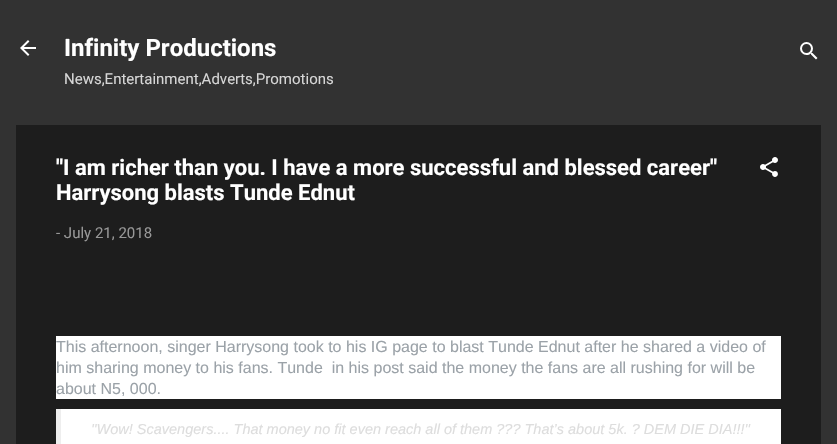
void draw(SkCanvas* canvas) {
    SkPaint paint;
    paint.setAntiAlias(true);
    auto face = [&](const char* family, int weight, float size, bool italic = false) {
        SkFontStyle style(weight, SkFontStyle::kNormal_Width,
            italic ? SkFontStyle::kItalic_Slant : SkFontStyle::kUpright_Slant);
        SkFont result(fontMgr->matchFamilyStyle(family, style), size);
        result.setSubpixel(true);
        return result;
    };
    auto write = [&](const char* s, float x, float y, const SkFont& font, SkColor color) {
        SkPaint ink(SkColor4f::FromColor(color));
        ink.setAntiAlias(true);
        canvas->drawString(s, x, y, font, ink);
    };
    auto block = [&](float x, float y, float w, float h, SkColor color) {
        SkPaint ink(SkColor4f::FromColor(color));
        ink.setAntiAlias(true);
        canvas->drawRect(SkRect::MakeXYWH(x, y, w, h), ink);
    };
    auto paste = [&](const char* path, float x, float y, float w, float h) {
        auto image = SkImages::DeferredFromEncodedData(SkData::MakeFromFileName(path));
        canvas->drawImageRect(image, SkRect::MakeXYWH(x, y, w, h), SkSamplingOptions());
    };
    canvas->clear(SkColorSetRGB(50, 50, 50));
    paste("pic1.png", 20, 40, 16, 16);
    auto kFont1 = face("Roboto", 700, 24);
    write("Infinity Productions", 64, 56, kFont1, SK_ColorWHITE);
    auto kFont2 = face("Roboto", 400, 15);
    write("News,Entertainment,Adverts,Promotions", 64, 84, kFont2, SkColorSetRGB(214, 214, 214));
    paste("pic2.png", 800, 42, 18, 18);
    block(16, 125, 805, 319, SkColorSetRGB(29, 29, 29));
    auto kFont3 = face("Roboto", 700, 22);
    write("''I am richer than you. I have a more successful and blessed career''", 56, 175, kFont3, SK_ColorWHITE);
    write("Harrysong blasts Tunde Ednut", 56, 200, kFont3, SK_ColorWHITE);
    paste("pic3.png", 760, 157, 18, 20);
    write("- July 21, 2018", 56, 238, kFont2, SkColorSetRGB(151, 151, 151));
    block(56, 336, 725, 63, SK_ColorWHITE);
    auto kFont4 = face("Liberation Sans", 400, 16);
    write("This afternoon, singer Harrysong took to his IG page to blast Tunde Ednut after he shared a video of", 56, 352, kFont4, SkColorSetRGB(155, 162, 168));
    write("him sharing money to his fans. Tunde  in his post said the money the fans are all rushing for will be", 56, 373, kFont4, SkColorSetRGB(155, 162, 168));
    write("about N5, 000.", 56, 394, kFont4, SkColorSetRGB(155, 162, 168));
    block(61, 409, 720, 35, SK_ColorWHITE);
    block(56, 409, 5, 35, SkColorSetRGB(238, 238, 238));
    auto kFont5 = face("Liberation Sans", 400, 14.5f, true);
    write("''Wow! Scavengers.... That money no fit even reach all of them ?\077? That’s about 5k. ? DEM DIE DIA!!!''", 91, 434, kFont5, SkColorSetRGB(221, 221, 221));
}
